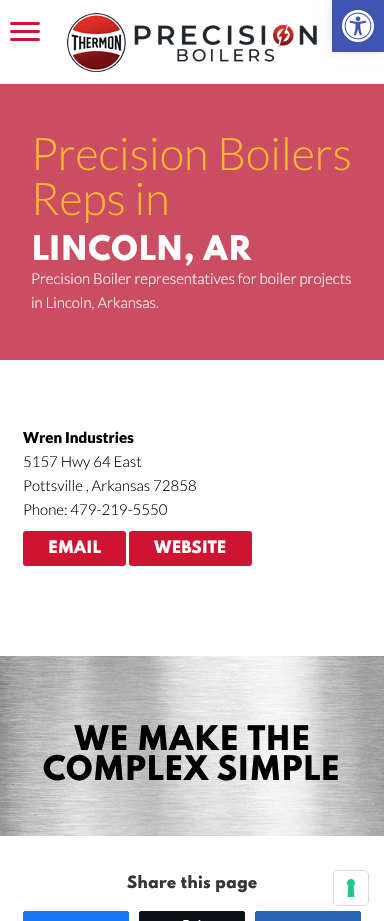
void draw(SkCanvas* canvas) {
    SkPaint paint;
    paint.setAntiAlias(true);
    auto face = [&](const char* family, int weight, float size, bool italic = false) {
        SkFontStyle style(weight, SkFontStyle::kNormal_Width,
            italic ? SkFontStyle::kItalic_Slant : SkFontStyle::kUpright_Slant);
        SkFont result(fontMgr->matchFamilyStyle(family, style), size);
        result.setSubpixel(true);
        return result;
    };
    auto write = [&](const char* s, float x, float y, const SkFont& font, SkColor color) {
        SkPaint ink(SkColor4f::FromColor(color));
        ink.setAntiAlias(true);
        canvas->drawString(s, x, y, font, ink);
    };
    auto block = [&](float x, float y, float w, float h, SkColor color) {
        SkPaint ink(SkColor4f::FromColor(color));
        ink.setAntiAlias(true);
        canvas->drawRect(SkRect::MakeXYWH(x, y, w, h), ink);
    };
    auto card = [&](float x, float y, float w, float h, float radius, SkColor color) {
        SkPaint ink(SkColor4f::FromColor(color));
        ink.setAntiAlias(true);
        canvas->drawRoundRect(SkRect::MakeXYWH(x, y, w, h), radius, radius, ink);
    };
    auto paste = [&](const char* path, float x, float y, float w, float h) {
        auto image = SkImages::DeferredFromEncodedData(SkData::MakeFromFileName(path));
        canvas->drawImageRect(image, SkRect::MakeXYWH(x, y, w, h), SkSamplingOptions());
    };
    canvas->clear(SK_ColorWHITE);
    paste("pic2.png", 67, 13, 250, 59);
    paint.setColor(SkColorSetARGB(26, 0, 0, 0));
    paint.setMaskFilter(SkMaskFilter::MakeBlur(kNormal_SkBlurStyle, 5));
    canvas->drawRect(SkRect::MakeXYWH(332, 0, 52, 52), paint);
    paint.setMaskFilter(nullptr);
    block(332, 0, 52, 52, SkColorSetRGB(64, 84, 178));
    paste("pic1.png", 342, 10, 32, 32);
    card(10, 30, 30, 3, 1.5f, SkColorSetRGB(206, 20, 50));
    card(10, 22, 30, 3, 1.5f, SkColorSetRGB(206, 20, 50));
    card(10, 38, 30, 3, 1.5f, SkColorSetRGB(206, 20, 50));
    block(0, 84, 384, 276, SkColorSetRGB(203, 77, 98));
    auto kFont1 = face("Lato", 300, 45);
    write("Precision Boilers", 31, 170, kFont1, SkColorSetRGB(253, 187, 48));
    write("Reps in", 31, 215, kFont1, SkColorSetRGB(253, 187, 48));
    auto kFont2 = face("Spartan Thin", 100, 30);
    write("LINCOLN, AR", 31, 260, kFont2, SK_ColorWHITE);
    auto kFont3 = face("Lato", 300, 15);
    write("Precision Boiler representatives for boiler projects", 31, 284, kFont3, SK_ColorWHITE);
    write("in Lincoln, Arkansas.", 31, 308, kFont3, SK_ColorWHITE);
    auto kFont4 = face("Lato", 900, 15);
    write("Wren Industries", 23, 443, kFont4, SK_ColorBLACK);
    write("5157 Hwy 64 East", 23, 467, kFont3, SK_ColorBLACK);
    write("Pottsville , Arkansas 72858", 23, 491, kFont3, SK_ColorBLACK);
    write("Phone: 479-219-5550", 23, 515, kFont3, SK_ColorBLACK);
    card(23, 531, 103, 35, 3, SkColorSetRGB(206, 20, 50));
    auto kFont5 = face("Spartan Thin", 100, 15);
    write("EMAIL", 48, 553, kFont5, SK_ColorWHITE);
    card(129, 531, 123, 35, 3, SkColorSetRGB(206, 20, 50));
    write("WEBSITE", 154, 553, kFont5, SK_ColorWHITE);
    paste("pic3.png", 0, 656, 384, 180);
    write("WE MAKE THE", 74, 750, kFont2, SK_ColorBLACK);
    write("COMPLEX SIMPLE", 43, 780, kFont2, SK_ColorBLACK);
    write("Share this page", 127, 888, kFont5, SkColorSetRGB(53, 54, 55));
    paint.setColor(SkColorSetRGB(24, 119, 242));
    canvas->drawRoundRect(SkRect::MakeXYWH(23.5f, 911.5f, 105, 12), 1.5f, 1.5f, paint);
    paint.setStyle(SkPaint::kStroke_Style);
    paint.setStrokeWidth(1);
    canvas->drawRoundRect(SkRect::MakeXYWH(23.5f, 911.5f, 105, 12), 1.5f, 1.5f, paint);
    paint.setStyle(SkPaint::kFill_Style);
    paint.setColor(SkColorSetRGB(13, 16, 20));
    canvas->drawRoundRect(SkRect::MakeXYWH(139.5f, 911.5f, 105, 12), 1.5f, 1.5f, paint);
    paint.setStyle(SkPaint::kStroke_Style);
    canvas->drawRoundRect(SkRect::MakeXYWH(139.5f, 911.5f, 105, 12), 1.5f, 1.5f, paint);
    paste("pic4.png", 183, 920, 18, 1);
    paint.setStyle(SkPaint::kFill_Style);
    paint.setColor(SkColorSetRGB(39, 103, 177));
    canvas->drawRoundRect(SkRect::MakeXYWH(255.5f, 911.5f, 105, 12), 1.5f, 1.5f, paint);
    paint.setStyle(SkPaint::kStroke_Style);
    canvas->drawRoundRect(SkRect::MakeXYWH(255.5f, 911.5f, 105, 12), 1.5f, 1.5f, paint);
    paint.setColor(SkColorSetRGB(217, 217, 217));
    canvas->drawRoundRect(SkRect::MakeXYWH(333.5f, 870.5f, 35, 35), 4.5f, 4.5f, paint);
    card(334, 871, 34, 34, 4, SK_ColorWHITE);
    paste("pic5.png", 347, 879, 8, 18);
}
